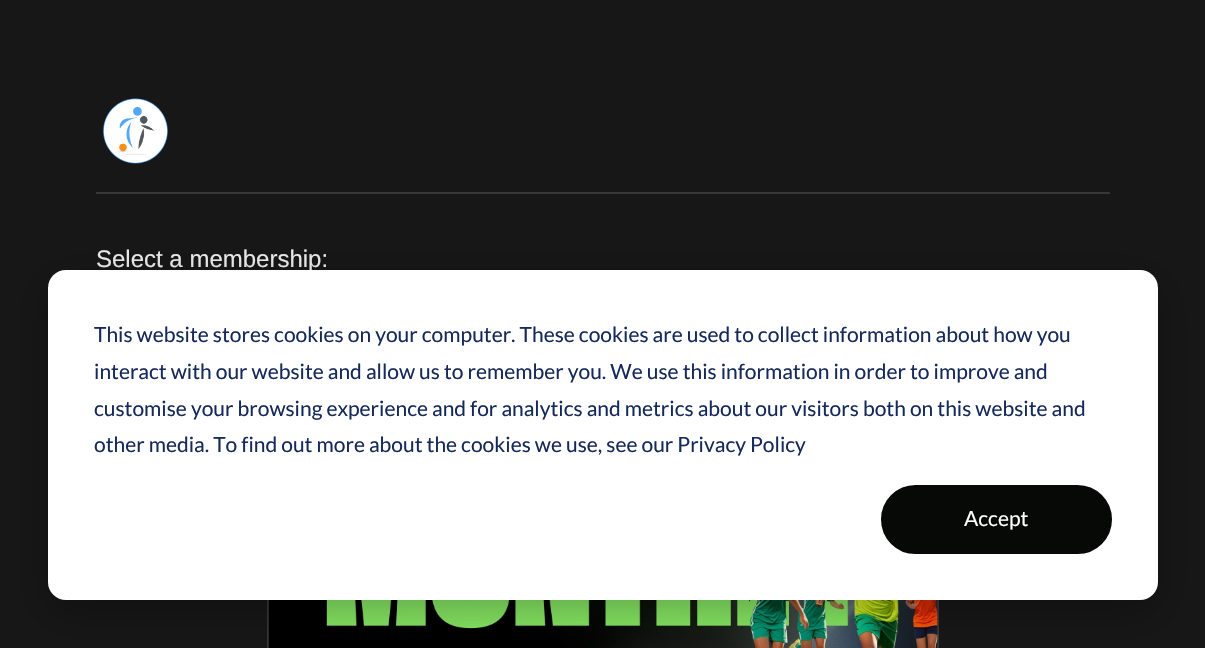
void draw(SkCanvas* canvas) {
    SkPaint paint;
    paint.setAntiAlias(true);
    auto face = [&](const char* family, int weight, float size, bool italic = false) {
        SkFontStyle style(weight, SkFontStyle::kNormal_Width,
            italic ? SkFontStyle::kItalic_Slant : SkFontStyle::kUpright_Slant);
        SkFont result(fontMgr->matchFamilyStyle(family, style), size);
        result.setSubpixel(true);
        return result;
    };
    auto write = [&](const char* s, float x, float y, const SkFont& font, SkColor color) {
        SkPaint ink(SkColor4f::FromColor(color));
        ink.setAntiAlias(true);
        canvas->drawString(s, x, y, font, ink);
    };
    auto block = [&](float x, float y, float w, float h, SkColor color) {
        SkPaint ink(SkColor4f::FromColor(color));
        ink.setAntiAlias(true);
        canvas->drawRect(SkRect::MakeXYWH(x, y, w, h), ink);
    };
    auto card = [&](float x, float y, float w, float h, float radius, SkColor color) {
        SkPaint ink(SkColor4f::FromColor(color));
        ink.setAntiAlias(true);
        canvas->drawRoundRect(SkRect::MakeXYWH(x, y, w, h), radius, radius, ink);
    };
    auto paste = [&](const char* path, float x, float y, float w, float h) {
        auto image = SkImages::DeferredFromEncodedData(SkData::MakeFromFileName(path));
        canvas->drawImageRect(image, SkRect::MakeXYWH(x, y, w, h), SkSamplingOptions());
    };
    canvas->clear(SkColorSetRGB(23, 23, 23));
    paste("pic1.png", 103, 98, 65, 66);
    block(96, 192, 1014, 2, SkColorSetRGB(55, 55, 55));
    auto kFont1 = face("Liberation Sans", 400, 24);
    write("Select a membership:", 96, 267, kFont1, SkColorSetRGB(238, 238, 238));
    paint.setStyle(SkPaint::kStroke_Style);
    paint.setStrokeWidth(2);
    paint.setColor(SkColorSetRGB(55, 55, 55));
    canvas->drawRect(SkRect::MakeXYWH(268, 315, 670, 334), paint);
    paste("pic2.png", 268, 600, 670, 48);
    paint.setStyle(SkPaint::kFill_Style);
    paint.setColor(SkColorSetARGB(71, 0, 0, 0));
    paint.setMaskFilter(SkMaskFilter::MakeBlur(kNormal_SkBlurStyle, 21));
    canvas->drawRoundRect(SkRect::MakeXYWH(48, 282, 1110, 330), 18, 18, paint);
    paint.setMaskFilter(nullptr);
    card(48, 270, 1110, 330, 18, SK_ColorWHITE);
    auto kFont2 = face("Lato", 400, 21);
    write("This website stores cookies on your computer. These cookies are used to collect information about how you", 94, 342, kFont2, SkColorSetRGB(21, 41, 90));
    write("interact with our website and allow us to remember you. We use this information in order to improve and", 94, 379, kFont2, SkColorSetRGB(21, 41, 90));
    write("customise your browsing experience and for analytics and metrics about our visitors both on this website and", 94, 416, kFont2, SkColorSetRGB(21, 41, 90));
    write("other media. To find out more about the cookies we use, see our Privacy Policy", 94, 452, kFont2, SkColorSetRGB(21, 41, 90));
    paint.setColor(SkColorSetRGB(7, 9, 7));
    canvas->drawRoundRect(SkRect::MakeXYWH(882, 486, 229, 67), 33.5f, 33.5f, paint);
    paint.setStyle(SkPaint::kStroke_Style);
    canvas->drawRoundRect(SkRect::MakeXYWH(882, 486, 229, 67), 33.5f, 33.5f, paint);
    write("Accept", 964, 526, kFont2, SK_ColorWHITE);
}
